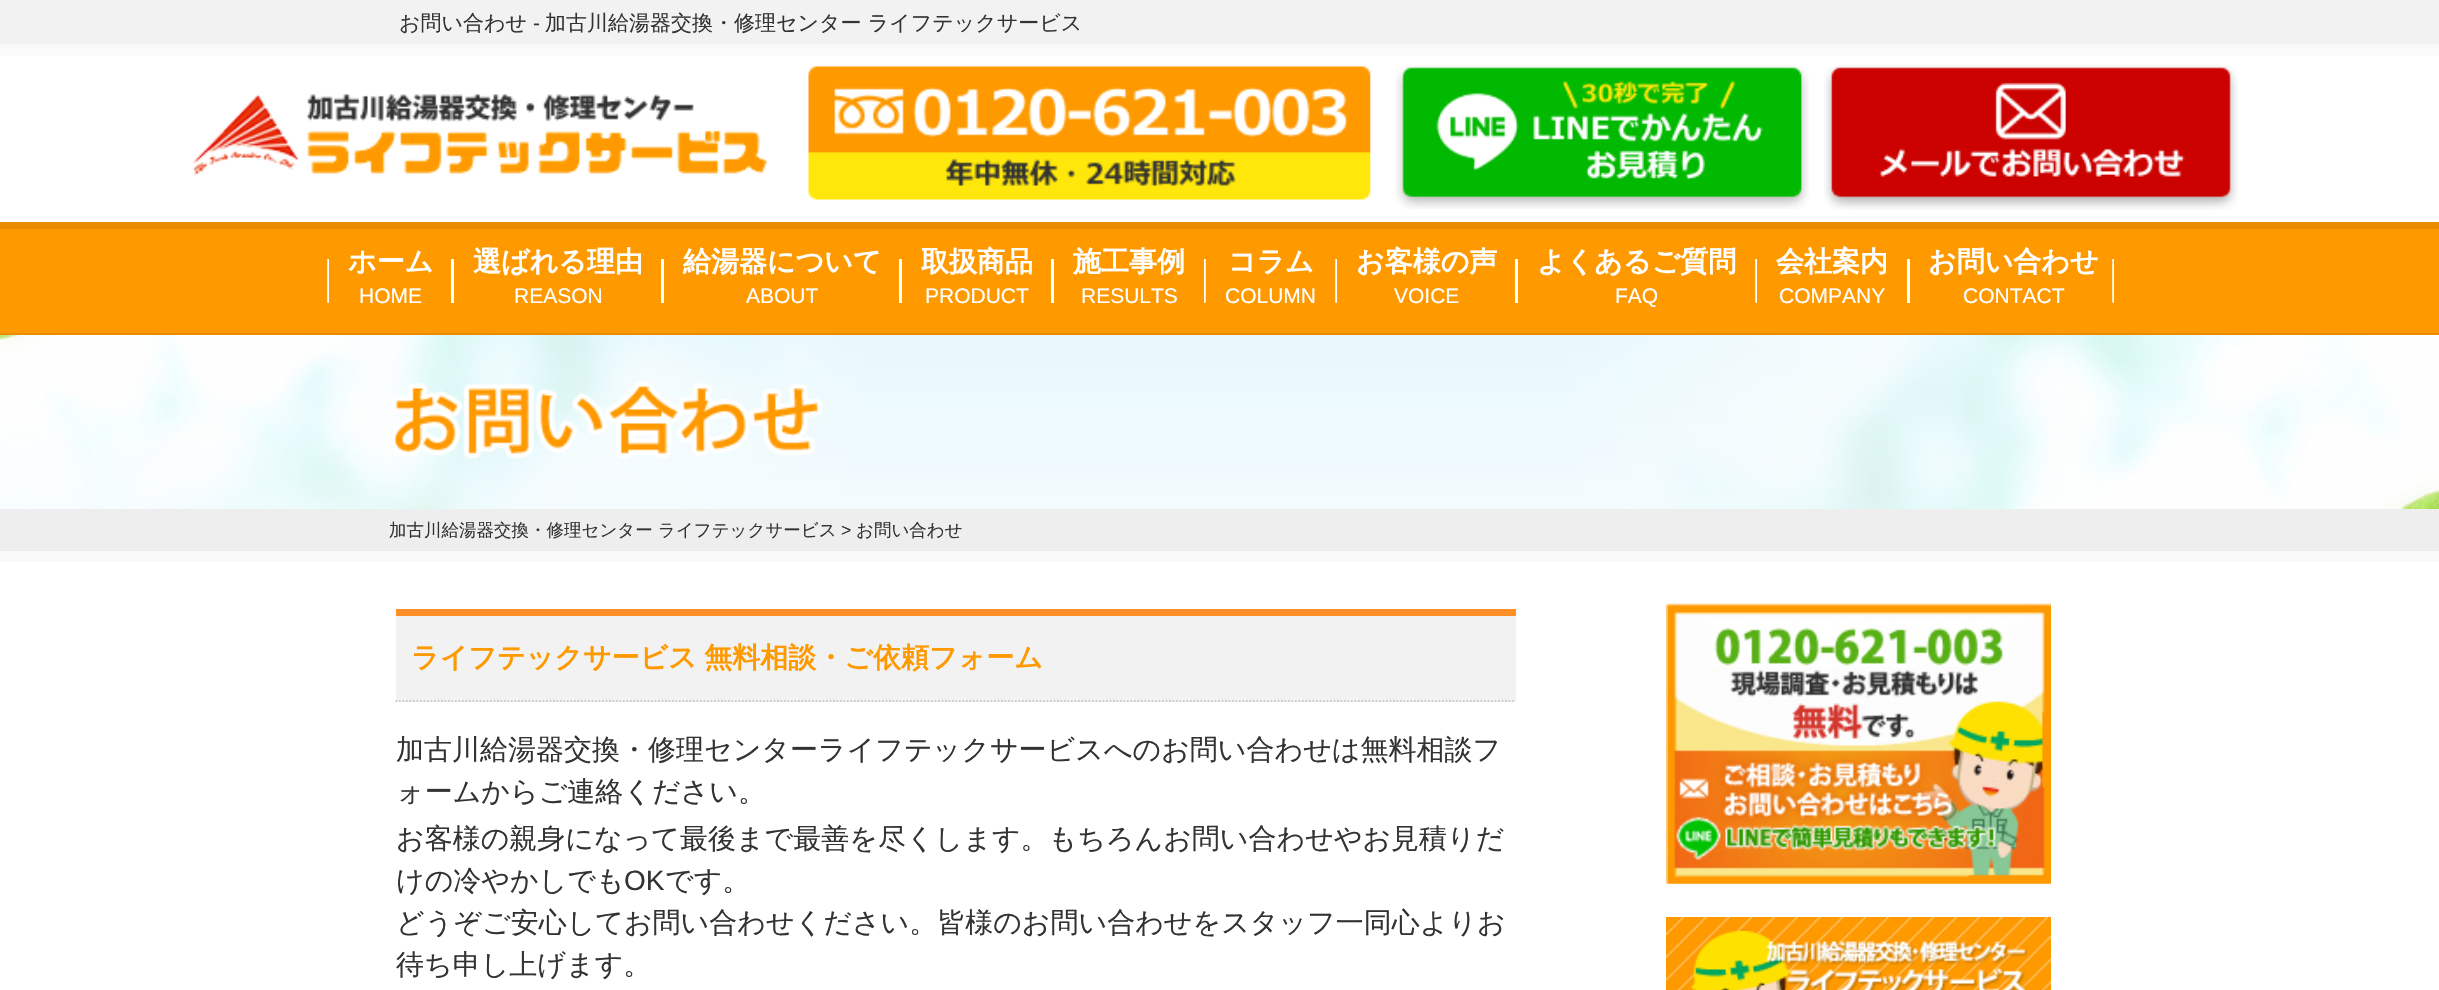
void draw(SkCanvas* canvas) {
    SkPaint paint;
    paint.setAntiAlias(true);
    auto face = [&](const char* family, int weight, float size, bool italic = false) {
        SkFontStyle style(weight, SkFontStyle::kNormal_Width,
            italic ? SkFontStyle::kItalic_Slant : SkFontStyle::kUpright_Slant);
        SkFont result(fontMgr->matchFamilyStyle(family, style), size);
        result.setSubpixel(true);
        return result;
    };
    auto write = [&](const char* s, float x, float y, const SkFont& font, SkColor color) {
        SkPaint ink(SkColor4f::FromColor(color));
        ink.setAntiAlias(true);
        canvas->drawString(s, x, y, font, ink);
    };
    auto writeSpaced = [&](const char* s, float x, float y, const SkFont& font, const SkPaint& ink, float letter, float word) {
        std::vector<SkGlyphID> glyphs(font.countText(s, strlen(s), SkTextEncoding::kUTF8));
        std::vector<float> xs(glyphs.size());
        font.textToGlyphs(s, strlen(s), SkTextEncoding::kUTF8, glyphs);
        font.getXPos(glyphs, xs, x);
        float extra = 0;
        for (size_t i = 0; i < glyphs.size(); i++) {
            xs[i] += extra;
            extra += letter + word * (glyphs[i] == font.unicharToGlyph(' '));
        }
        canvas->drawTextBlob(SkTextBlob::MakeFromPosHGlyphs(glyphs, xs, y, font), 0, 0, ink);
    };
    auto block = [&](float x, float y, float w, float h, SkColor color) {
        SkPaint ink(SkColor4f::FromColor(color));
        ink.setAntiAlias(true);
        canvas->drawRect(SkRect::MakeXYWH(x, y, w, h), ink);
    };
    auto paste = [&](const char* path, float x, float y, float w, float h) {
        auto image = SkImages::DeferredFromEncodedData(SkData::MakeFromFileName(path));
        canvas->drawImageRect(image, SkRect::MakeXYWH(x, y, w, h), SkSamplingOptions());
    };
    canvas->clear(SK_ColorWHITE);
    paste("pic1.png", 0, 44, 2439, 12);
    block(0, 0, 2439, 44, SkColorSetRGB(242, 242, 242));
    auto kFont1 = face("WenQuanYi Zen Hei", 500, 21);
    write("お問い合わせ", 399, 30, kFont1, SkColorSetRGB(51, 51, 51));
    auto kFont2 = face("Liberation Sans", 400, 21);
    write("-", 533, 30, kFont2, SkColorSetRGB(51, 51, 51));
    write("加古川給湯器交換・修理センター ライフテックサービス", 545, 30, kFont1, SkColorSetRGB(51, 51, 51));
    paste("pic2.png", 192, 94, 575, 82);
    paste("pic3.png", 808, 66, 563, 134);
    paste("pic4.png", 1395, 65, 414, 144);
    paste("pic5.png", 1824, 65, 414, 145);
    block(0, 229, 2439, 104, SkColorSetRGB(255, 153, 0));
    block(0, 222, 2439, 7, SkColorSetRGB(234, 140, 0));
    block(0, 333, 2439, 2, SkColorSetRGB(234, 140, 0));
    paste("pic6.png", 2112, 259, 2, 44);
    paste("pic6.png", 327, 259, 2, 44);
    auto kFont3 = face("WenQuanYi Zen Hei", 700, 28);
    write("ホーム", 348, 271, kFont3, SK_ColorWHITE);
    write("HOME", 359, 303, kFont2, SK_ColorWHITE);
    block(451, 259, 3, 44, SK_ColorWHITE);
    write("選ばれる理由", 473, 271, kFont3, SK_ColorWHITE);
    write("REASON", 514, 303, kFont2, SK_ColorWHITE);
    block(661, 259, 3, 44, SK_ColorWHITE);
    write("給湯器について", 683, 271, kFont3, SK_ColorWHITE);
    write("ABOUT", 746, 303, kFont2, SK_ColorWHITE);
    block(899, 259, 3, 44, SK_ColorWHITE);
    write("取扱商品", 921, 271, kFont3, SK_ColorWHITE);
    write("PRODUCT", 925, 303, kFont2, SK_ColorWHITE);
    block(1051, 259, 3, 44, SK_ColorWHITE);
    write("施工事例", 1073, 271, kFont3, SK_ColorWHITE);
    write("RESULTS", 1081, 303, kFont2, SK_ColorWHITE);
    paste("pic7.png", 1204, 259, 2, 44);
    write("コラム", 1228, 271, kFont3, SK_ColorWHITE);
    write("COLUMN", 1225, 303, kFont2, SK_ColorWHITE);
    paste("pic6.png", 1335, 259, 2, 44);
    write("お客様の声", 1356, 271, kFont3, SK_ColorWHITE);
    write("VOICE", 1394, 303, kFont2, SK_ColorWHITE);
    block(1515, 259, 3, 44, SK_ColorWHITE);
    write("よくあるご質問", 1537, 271, kFont3, SK_ColorWHITE);
    write("FAQ", 1615, 303, kFont2, SK_ColorWHITE);
    paste("pic6.png", 1755, 259, 2, 44);
    write("会社案内", 1776, 271, kFont3, SK_ColorWHITE);
    write("COMPANY", 1779, 303, kFont2, SK_ColorWHITE);
    block(1907, 259, 3, 44, SK_ColorWHITE);
    write("お問い合わせ", 1928, 271, kFont3, SK_ColorWHITE);
    write("CONTACT", 1963, 303, kFont2, SK_ColorWHITE);
    paste("pic8.png", 0, 335, 2439, 174);
    paste("pic9.png", 391, 381, 432, 78);
    block(0, 509, 2439, 42, SkColorSetRGB(238, 238, 238));
    auto kFont4 = face("WenQuanYi Zen Hei", 500, 17.5f);
    write("加古川給湯器交換・修理センター ライフテックサービス", 389, 536, kFont4, SkColorSetRGB(51, 51, 51));
    auto kFont5 = face("Liberation Sans", 400, 17.5f);
    write(">", 841, 536, kFont5, SkColorSetRGB(51, 51, 51));
    write("お問い合わせ", 856, 536, kFont4, SkColorSetRGB(51, 51, 51));
    block(0, 551, 2439, 11, SkColorSetRGB(249, 249, 249));
    block(396, 616, 1120, 86, SkColorSetRGB(242, 242, 242));
    block(396, 609, 1120, 7, SkColorSetRGB(255, 142, 39));
    paint.setStyle(SkPaint::kStroke_Style);
    paint.setStrokeWidth(1.8f);
    paint.setColor(SkColorSetRGB(204, 204, 204));
    paint.setPathEffect(SkDashPathEffect::Make({{1.75f, 1.75f}}, 0));
    canvas->drawPath(SkPathBuilder().moveTo(395.5f, 701).lineTo(1515.5f, 701).detach(), paint);
    paint.setPathEffect(nullptr);
    paint.setStyle(SkPaint::kFill_Style);
    paint.setColor(SkColorSetRGB(255, 153, 0));
    writeSpaced("ライフテックサービス 無料相談・ご依頼フォーム", 411, 667, kFont3, paint, 0, -1);
    auto kFont6 = face("WenQuanYi Zen Hei", 500, 28);
    write("加古川給湯器交換・修理センターライフテックサービスへのお問い合わせは無料相談フ", 396, 759, kFont6, SkColorSetRGB(51, 51, 51));
    write("ォームからご連絡ください。", 396, 801, kFont6, SkColorSetRGB(51, 51, 51));
    write("お客様の親身になって最後まで最善を尽くします。もちろんお問い合わせやお見積りだ", 396, 848, kFont6, SkColorSetRGB(51, 51, 51));
    write("けの冷やかしでも", 396, 890, kFont6, SkColorSetRGB(51, 51, 51));
    auto kFont7 = face("Liberation Sans", 400, 28);
    write("OK", 624, 890, kFont7, SkColorSetRGB(51, 51, 51));
    write("です。", 665, 890, kFont6, SkColorSetRGB(51, 51, 51));
    write("どうぞご安心してお問い合わせください。皆様のお問い合わせをスタッフ一同心よりお", 396, 932, kFont6, SkColorSetRGB(51, 51, 51));
    write("待ち申し上げます。", 396, 974, kFont6, SkColorSetRGB(51, 51, 51));
    paste("pic10.png", 1666, 603, 385, 281);
    paste("pic11.png", 1666, 917, 385, 73);
    paste("pic12.png", 1690, 931, 338, 59);
}
